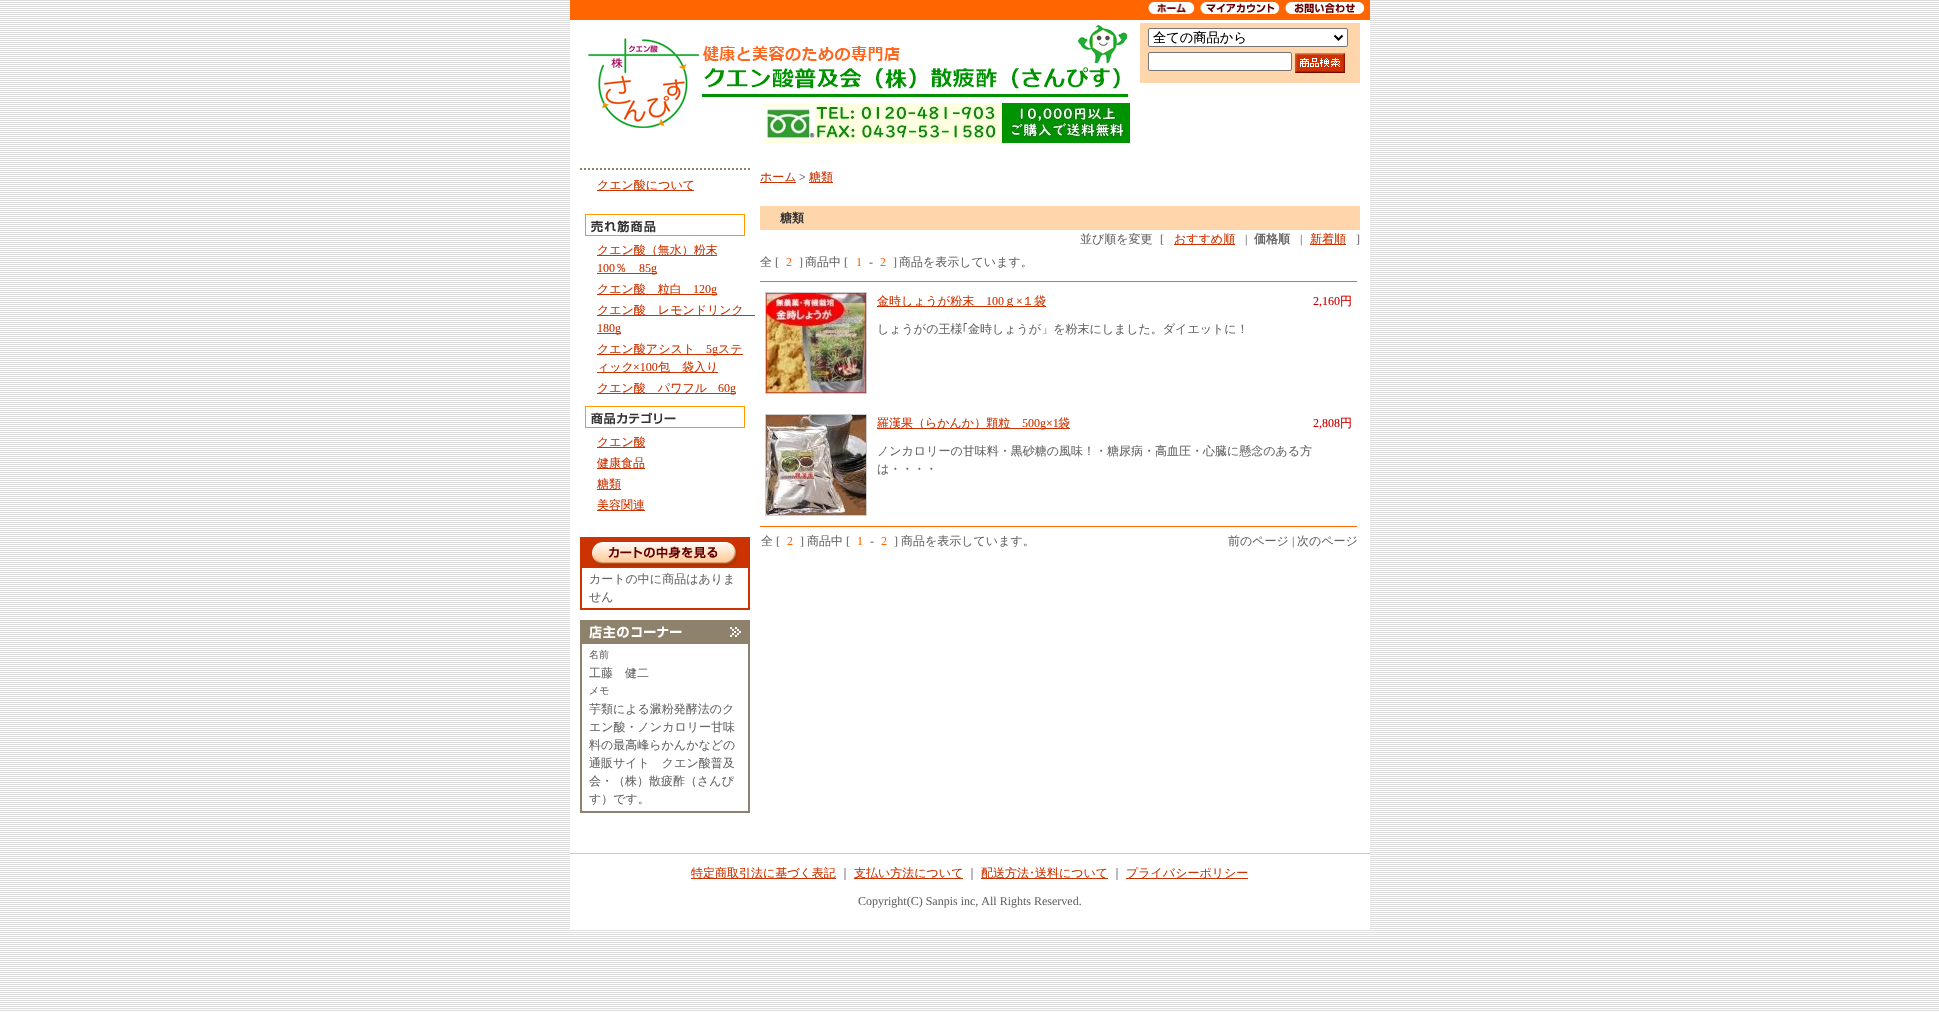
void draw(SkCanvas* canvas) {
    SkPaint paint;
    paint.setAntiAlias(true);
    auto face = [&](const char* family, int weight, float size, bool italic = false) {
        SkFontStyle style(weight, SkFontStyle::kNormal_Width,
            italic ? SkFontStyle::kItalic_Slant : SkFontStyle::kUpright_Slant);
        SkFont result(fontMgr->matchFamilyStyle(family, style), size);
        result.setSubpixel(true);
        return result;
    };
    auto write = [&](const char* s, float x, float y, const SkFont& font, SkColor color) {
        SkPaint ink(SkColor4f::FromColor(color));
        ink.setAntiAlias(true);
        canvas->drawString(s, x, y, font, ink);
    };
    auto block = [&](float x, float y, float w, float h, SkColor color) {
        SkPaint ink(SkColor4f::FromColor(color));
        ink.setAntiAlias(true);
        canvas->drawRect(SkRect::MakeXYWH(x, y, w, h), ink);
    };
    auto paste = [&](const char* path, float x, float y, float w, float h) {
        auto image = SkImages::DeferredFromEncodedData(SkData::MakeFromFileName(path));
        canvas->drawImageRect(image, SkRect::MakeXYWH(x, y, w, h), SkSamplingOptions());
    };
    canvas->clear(SkColorSetRGB(221, 221, 221));
    paste("pic1.png", 0, 1, 1939, 1011);
    block(570, 20, 800, 909, SK_ColorWHITE);
    block(570, 0, 800, 20, SkColorSetRGB(255, 102, 0));
    paste("pic2.png", 1148, 2, 47, 12);
    paste("pic3.png", 1200, 2, 80, 12);
    paste("pic4.png", 1285, 2, 80, 12);
    paste("pic5.png", 588, 25, 542, 118);
    block(1140, 23, 220, 60, SkColorSetRGB(255, 213, 172));
    paint.setColor(SK_ColorWHITE);
    canvas->drawRoundRect(SkRect::MakeXYWH(1148.5f, 28.5f, 199, 18), 1.5f, 1.5f, paint);
    paint.setStyle(SkPaint::kStroke_Style);
    paint.setStrokeWidth(1);
    paint.setColor(SkColorSetRGB(118, 118, 118));
    canvas->drawRoundRect(SkRect::MakeXYWH(1148.5f, 28.5f, 199, 18), 1.5f, 1.5f, paint);
    paint.setStrokeWidth(2);
    paint.setColor(SK_ColorBLACK);
    canvas->drawPath(SkPathBuilder().moveTo(1334.5f, 35.5f).lineTo(1338.5f, 39.5f).lineTo(1342.5f, 35.5f).detach(), paint);
    auto kFont1 = face("WenQuanYi Zen Hei", 500, 13.25f);
    write("全ての商品から", 1153, 42, kFont1, SK_ColorBLACK);
    paint.setStyle(SkPaint::kFill_Style);
    paint.setColor(SK_ColorWHITE);
    canvas->drawRoundRect(SkRect::MakeXYWH(1148.5f, 52.5f, 143, 18), 1.5f, 1.5f, paint);
    paint.setStyle(SkPaint::kStroke_Style);
    paint.setStrokeWidth(1);
    paint.setColor(SkColorSetRGB(118, 118, 118));
    canvas->drawRoundRect(SkRect::MakeXYWH(1148.5f, 52.5f, 143, 18), 1.5f, 1.5f, paint);
    paste("pic6.png", 1295, 53, 50, 20);
    paint.setStrokeWidth(2);
    paint.setColor(SkColorSetRGB(143, 130, 108));
    paint.setPathEffect(SkDashPathEffect::Make({{2, 2}}, 0));
    canvas->drawPath(SkPathBuilder().moveTo(580, 169).lineTo(750, 169).detach(), paint);
    paint.setPathEffect(nullptr);
    block(597, 190, 97, 1, SkColorSetRGB(204, 51, 0));
    auto kFont2 = face("WenQuanYi Zen Hei", 500, 12);
    write("クエン酸について", 597, 189, kFont2, SkColorSetRGB(204, 51, 0));
    paint.setStrokeWidth(1);
    paint.setColor(SkColorSetRGB(255, 153, 0));
    canvas->drawRect(SkRect::MakeXYWH(585.5f, 214.5f, 159, 21), paint);
    paste("pic7.png", 591, 220, 65, 13);
    block(597, 255, 120, 1, SkColorSetRGB(204, 51, 0));
    write("クエン酸（無水）粉末", 597, 254, kFont2, SkColorSetRGB(204, 51, 0));
    auto kFont3 = face("Liberation Serif", 400, 12);
    write("100", 597, 272, kFont3, SkColorSetRGB(204, 51, 0));
    write("％", 615, 272, kFont2, SkColorSetRGB(204, 51, 0));
    block(597, 273, 60, 1, SkColorSetRGB(204, 51, 0));
    write("85g", 639, 272, kFont3, SkColorSetRGB(204, 51, 0));
    block(597, 294, 120, 1, SkColorSetRGB(204, 51, 0));
    write("クエン酸　粒白", 597, 293, kFont2, SkColorSetRGB(204, 51, 0));
    write("120g", 693, 293, kFont3, SkColorSetRGB(204, 51, 0));
    block(597, 315, 158, 1, SkColorSetRGB(204, 51, 0));
    write("クエン酸　レモンドリンク", 597, 314, kFont2, SkColorSetRGB(204, 51, 0));
    block(597, 333, 24, 1, SkColorSetRGB(204, 51, 0));
    write("180g", 597, 332, kFont3, SkColorSetRGB(204, 51, 0));
    block(597, 354, 146, 1, SkColorSetRGB(204, 51, 0));
    write("クエン酸アシスト", 597, 353, kFont2, SkColorSetRGB(204, 51, 0));
    write("5g", 706, 353, kFont3, SkColorSetRGB(204, 51, 0));
    write("ステ", 718, 353, kFont2, SkColorSetRGB(204, 51, 0));
    block(597, 372, 121, 1, SkColorSetRGB(204, 51, 0));
    write("ィック", 597, 371, kFont2, SkColorSetRGB(204, 51, 0));
    write("×100", 633, 371, kFont3, SkColorSetRGB(204, 51, 0));
    write("包　袋入り", 658, 371, kFont2, SkColorSetRGB(204, 51, 0));
    block(597, 393, 139, 1, SkColorSetRGB(204, 51, 0));
    write("クエン酸　パワフル", 597, 392, kFont2, SkColorSetRGB(204, 51, 0));
    write("60g", 718, 392, kFont3, SkColorSetRGB(204, 51, 0));
    canvas->drawRect(SkRect::MakeXYWH(585.5f, 406.5f, 159, 21), paint);
    paste("pic8.png", 591, 412, 85, 13);
    block(597, 447, 48, 1, SkColorSetRGB(204, 51, 0));
    write("クエン酸", 597, 446, kFont2, SkColorSetRGB(204, 51, 0));
    block(597, 468, 48, 1, SkColorSetRGB(204, 51, 0));
    write("健康食品", 597, 467, kFont2, SkColorSetRGB(204, 51, 0));
    block(597, 489, 24, 1, SkColorSetRGB(204, 51, 0));
    write("糖類", 597, 488, kFont2, SkColorSetRGB(204, 51, 0));
    block(597, 510, 48, 1, SkColorSetRGB(204, 51, 0));
    write("美容関連", 597, 509, kFont2, SkColorSetRGB(204, 51, 0));
    block(580, 608, 170, 2, SkColorSetRGB(204, 51, 0));
    block(580, 537, 170, 31, SkColorSetRGB(204, 51, 0));
    paste("pic9.png", 592, 542, 146, 25);
    block(748, 568, 2, 40, SkColorSetRGB(204, 51, 0));
    block(580, 568, 2, 40, SkColorSetRGB(204, 51, 0));
    write("カートの中に商品はありま", 589, 583, kFont2, SkColorSetRGB(102, 102, 102));
    write("せん", 589, 601, kFont2, SkColorSetRGB(102, 102, 102));
    block(580, 811, 170, 2, SkColorSetRGB(143, 130, 108));
    block(580, 620, 170, 24, SkColorSetRGB(143, 130, 108));
    paste("pic10.png", 589, 625, 152, 14);
    block(748, 644, 2, 167, SkColorSetRGB(143, 130, 108));
    block(580, 644, 2, 167, SkColorSetRGB(143, 130, 108));
    auto kFont4 = face("WenQuanYi Zen Hei", 500, 10);
    write("名前", 589, 658, kFont4, SkColorSetRGB(102, 102, 102));
    write("工藤　健二", 589, 677, kFont2, SkColorSetRGB(102, 102, 102));
    write("メモ", 589, 694, kFont4, SkColorSetRGB(102, 102, 102));
    write("芋類による澱粉発酵法のク", 589, 713, kFont2, SkColorSetRGB(102, 102, 102));
    write("エン酸・ノンカロリー甘味", 589, 731, kFont2, SkColorSetRGB(102, 102, 102));
    write("料の最高峰らかんかなどの", 589, 749, kFont2, SkColorSetRGB(102, 102, 102));
    write("通販サイト　クエン酸普及", 589, 767, kFont2, SkColorSetRGB(102, 102, 102));
    write("会・（株）散疲酢（さんぴ", 589, 785, kFont2, SkColorSetRGB(102, 102, 102));
    write("す）です。", 589, 803, kFont2, SkColorSetRGB(102, 102, 102));
    block(760, 182, 36, 1, SkColorSetRGB(204, 51, 0));
    write("ホーム", 760, 181, kFont2, SkColorSetRGB(204, 51, 0));
    write(">", 799, 181, kFont3, SkColorSetRGB(102, 102, 102));
    block(809, 182, 24, 1, SkColorSetRGB(204, 51, 0));
    write("糖類", 809, 181, kFont2, SkColorSetRGB(204, 51, 0));
    block(760, 206, 600, 24, SkColorSetRGB(255, 213, 172));
    auto kFont5 = face("WenQuanYi Zen Hei", 700, 12);
    write("糖類", 780, 222, kFont5, SkColorSetRGB(51, 51, 51));
    write("並び順を変更", 1080, 243, kFont2, SkColorSetRGB(102, 102, 102));
    write("[", 1160, 243, kFont3, SkColorSetRGB(102, 102, 102));
    block(1174, 244, 61, 1, SkColorSetRGB(204, 51, 0));
    write("おすすめ順", 1174, 243, kFont2, SkColorSetRGB(204, 51, 0));
    write("|", 1245, 243, kFont3, SkColorSetRGB(102, 102, 102));
    write("価格順", 1254, 243, kFont5, SkColorSetRGB(102, 102, 102));
    write("|", 1300, 243, kFont3, SkColorSetRGB(102, 102, 102));
    block(1310, 244, 36, 1, SkColorSetRGB(204, 51, 0));
    write("新着順", 1310, 243, kFont2, SkColorSetRGB(204, 51, 0));
    write("]", 1356, 243, kFont3, SkColorSetRGB(102, 102, 102));
    write("全", 760, 266, kFont2, SkColorSetRGB(102, 102, 102));
    write("[", 775, 266, kFont3, SkColorSetRGB(102, 102, 102));
    write("2", 786, 266, kFont3, SkColorSetRGB(255, 102, 0));
    write("]", 799, 266, kFont3, SkColorSetRGB(102, 102, 102));
    write("商品中", 805, 266, kFont2, SkColorSetRGB(102, 102, 102));
    write("[", 844, 266, kFont3, SkColorSetRGB(102, 102, 102));
    write("1", 856, 266, kFont3, SkColorSetRGB(255, 102, 0));
    write("-", 869, 266, kFont3, SkColorSetRGB(102, 102, 102));
    write("2", 880, 266, kFont3, SkColorSetRGB(255, 102, 0));
    write("]", 893, 266, kFont3, SkColorSetRGB(102, 102, 102));
    write("商品を表示しています。", 899, 266, kFont2, SkColorSetRGB(102, 102, 102));
    block(760, 281, 597, 1, SkColorSetRGB(255, 102, 0));
    block(760, 526, 597, 1, SkColorSetRGB(255, 102, 0));
    paint.setColor(SkColorSetRGB(204, 204, 204));
    canvas->drawRect(SkRect::MakeXYWH(765.5f, 292.5f, 101, 101), paint);
    paste("pic11.png", 766, 293, 100, 100);
    block(877, 306, 169, 1, SkColorSetRGB(204, 51, 0));
    write("金時しょうが粉末", 877, 305, kFont2, SkColorSetRGB(204, 51, 0));
    write("100", 986, 305, kFont3, SkColorSetRGB(204, 51, 0));
    write("ｇ", 1004, 305, kFont2, SkColorSetRGB(204, 51, 0));
    write("×", 1016, 305, kFont3, SkColorSetRGB(204, 51, 0));
    write("１袋", 1022, 305, kFont2, SkColorSetRGB(204, 51, 0));
    write("2,160", 1313, 305, kFont3, SkColorSetRGB(204, 0, 0));
    write("円", 1340, 305, kFont2, SkColorSetRGB(204, 0, 0));
    write("しょうがの王様", 877, 333, kFont2, SkColorSetRGB(102, 102, 102));
    auto kFont6 = face("IPAPGothic", 400, 12);
    write("｢", 962, 333, kFont6, SkColorSetRGB(102, 102, 102));
    write("金時しょうが」を粉末にしました。ダイエットに！", 968, 333, kFont2, SkColorSetRGB(102, 102, 102));
    canvas->drawRect(SkRect::MakeXYWH(765.5f, 414.5f, 101, 101), paint);
    paste("pic12.png", 766, 415, 100, 100);
    block(877, 428, 193, 1, SkColorSetRGB(204, 51, 0));
    write("羅漢果（らかんか）顆粒", 877, 427, kFont2, SkColorSetRGB(204, 51, 0));
    write("500g×1", 1022, 427, kFont3, SkColorSetRGB(204, 51, 0));
    write("袋", 1058, 427, kFont2, SkColorSetRGB(204, 51, 0));
    write("2,808", 1313, 427, kFont3, SkColorSetRGB(204, 0, 0));
    write("円", 1340, 427, kFont2, SkColorSetRGB(204, 0, 0));
    write("ノンカロリーの甘味料・黒砂糖の風味！・糖尿病・高血圧・心臓に懸念のある方", 877, 455, kFont2, SkColorSetRGB(102, 102, 102));
    write("は・・・・", 877, 473, kFont2, SkColorSetRGB(102, 102, 102));
    write("全", 761, 545, kFont2, SkColorSetRGB(102, 102, 102));
    write("[", 776, 545, kFont3, SkColorSetRGB(102, 102, 102));
    write("2", 787, 545, kFont3, SkColorSetRGB(255, 102, 0));
    write("]", 800, 545, kFont3, SkColorSetRGB(102, 102, 102));
    write("商品中", 807, 545, kFont2, SkColorSetRGB(102, 102, 102));
    write("[", 846, 545, kFont3, SkColorSetRGB(102, 102, 102));
    write("1", 857, 545, kFont3, SkColorSetRGB(255, 102, 0));
    write("-", 870, 545, kFont3, SkColorSetRGB(102, 102, 102));
    write("2", 881, 545, kFont3, SkColorSetRGB(255, 102, 0));
    write("]", 894, 545, kFont3, SkColorSetRGB(102, 102, 102));
    write("商品を表示しています。", 901, 545, kFont2, SkColorSetRGB(102, 102, 102));
    write("前のページ", 1228, 545, kFont2, SkColorSetRGB(102, 102, 102));
    write("|", 1292, 545, kFont3, SkColorSetRGB(102, 102, 102));
    write("次のページ", 1297, 545, kFont2, SkColorSetRGB(102, 102, 102));
    block(570, 853, 800, 1, SkColorSetRGB(204, 204, 204));
    block(691, 878, 145, 1, SkColorSetRGB(204, 51, 0));
    write("特定商取引法に基づく表記", 691, 877, kFont2, SkColorSetRGB(204, 51, 0));
    write("｜", 839, 877, kFont2, SkColorSetRGB(102, 102, 102));
    block(854, 878, 109, 1, SkColorSetRGB(204, 51, 0));
    write("支払い方法について", 854, 877, kFont2, SkColorSetRGB(204, 51, 0));
    write("｜", 966, 877, kFont2, SkColorSetRGB(102, 102, 102));
    block(981, 878, 127, 1, SkColorSetRGB(204, 51, 0));
    write("配送方法", 981, 877, kFont2, SkColorSetRGB(204, 51, 0));
    write("･", 1029, 877, kFont6, SkColorSetRGB(204, 51, 0));
    write("送料について", 1035, 877, kFont2, SkColorSetRGB(204, 51, 0));
    write("｜", 1111, 877, kFont2, SkColorSetRGB(102, 102, 102));
    block(1126, 878, 122, 1, SkColorSetRGB(204, 51, 0));
    write("プライバシーポリシー", 1126, 877, kFont2, SkColorSetRGB(204, 51, 0));
    write("Copyright(C) Sanpis inc, All Rights Reserved.", 858, 905, kFont3, SkColorSetRGB(102, 102, 102));
}
